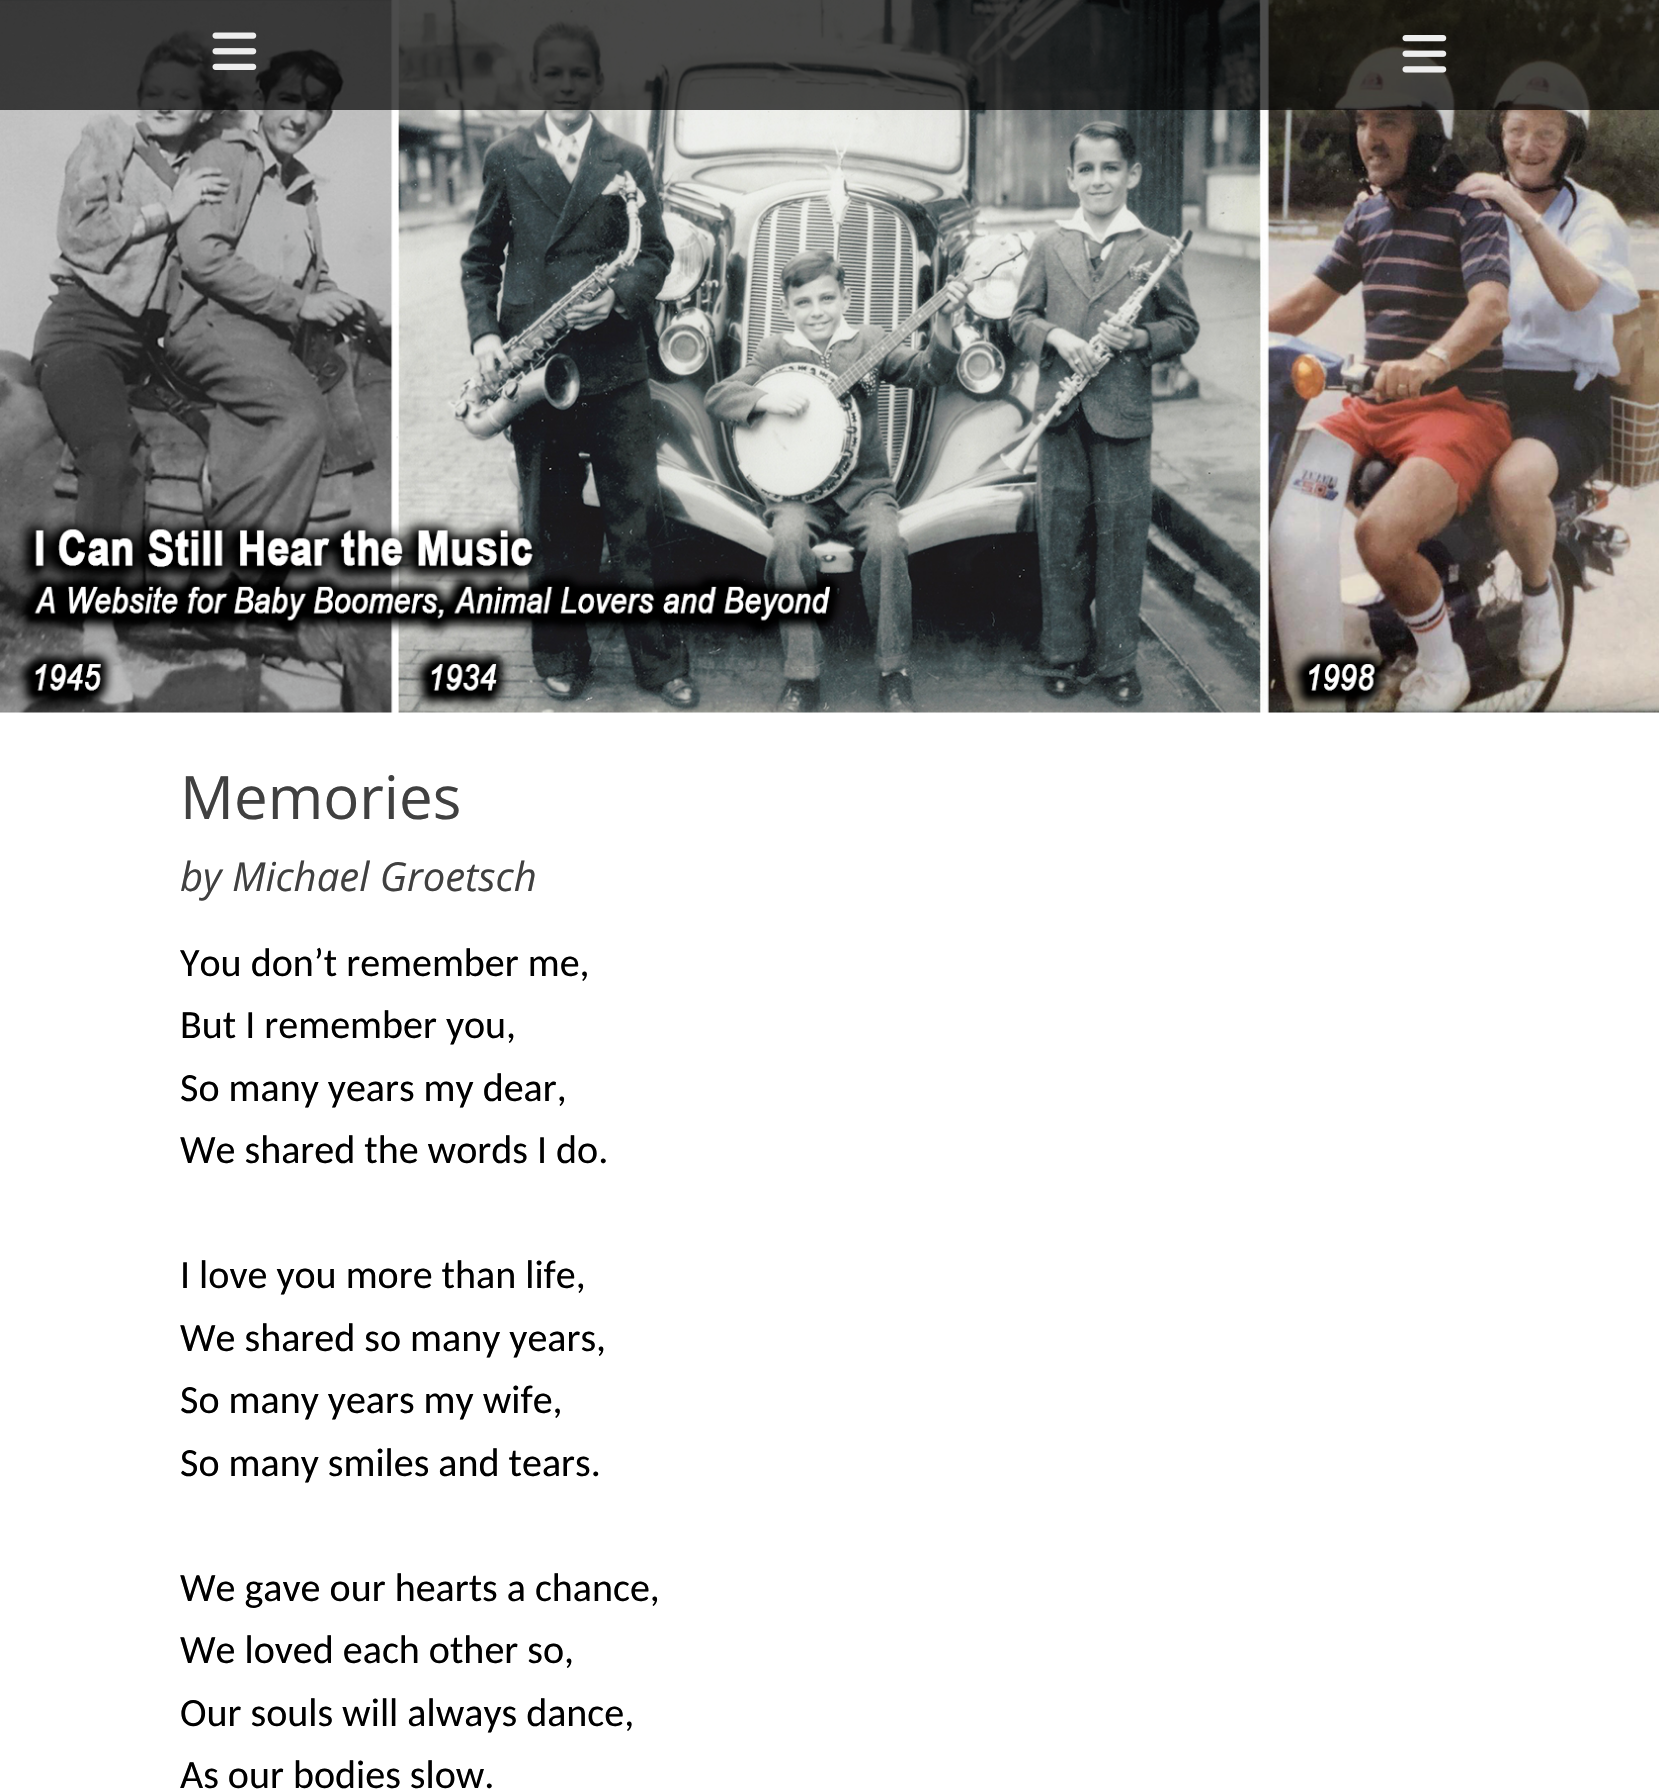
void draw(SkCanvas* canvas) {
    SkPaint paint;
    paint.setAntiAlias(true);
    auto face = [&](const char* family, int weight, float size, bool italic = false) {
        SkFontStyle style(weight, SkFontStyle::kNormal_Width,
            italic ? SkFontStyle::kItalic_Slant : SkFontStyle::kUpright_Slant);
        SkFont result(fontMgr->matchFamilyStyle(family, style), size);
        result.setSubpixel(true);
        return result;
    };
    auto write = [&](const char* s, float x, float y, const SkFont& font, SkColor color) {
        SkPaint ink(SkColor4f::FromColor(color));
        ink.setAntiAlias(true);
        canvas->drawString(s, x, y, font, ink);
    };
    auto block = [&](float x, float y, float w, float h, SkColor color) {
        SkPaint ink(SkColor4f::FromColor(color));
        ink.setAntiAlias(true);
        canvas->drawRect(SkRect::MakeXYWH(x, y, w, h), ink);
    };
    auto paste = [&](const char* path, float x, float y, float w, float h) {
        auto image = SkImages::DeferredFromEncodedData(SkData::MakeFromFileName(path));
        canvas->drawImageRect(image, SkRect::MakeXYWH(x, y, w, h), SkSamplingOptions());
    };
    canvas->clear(SK_ColorWHITE);
    paste("pic1.png", 0, 0, 1659, 713);
    block(0, 0, 1659, 110, SkColorSetARGB(179, 0, 0, 0));
    paste("pic2.png", 212, 32, 45, 38);
    paste("pic3.png", 1402, 35, 45, 38);
    auto kFont1 = face("Open Sans", 400, 60);
    write("Memories", 180, 819, kFont1, SkColorSetRGB(64, 64, 64));
    auto kFont2 = face("Open Sans", 400, 40, true);
    write("by Michael Groetsch", 180, 891, kFont2, SkColorSetRGB(64, 64, 64));
    auto kFont3 = face("Carlito", 400, 40);
    write("You don’t remember me,", 180, 976, kFont3, SK_ColorBLACK);
    write("But I remember you,", 180, 1038, kFont3, SK_ColorBLACK);
    write("So many years my dear,", 180, 1101, kFont3, SK_ColorBLACK);
    write("We shared the words I do.", 180, 1163, kFont3, SK_ColorBLACK);
    write("I love you more than life,", 180, 1288, kFont3, SK_ColorBLACK);
    write("We shared so many years,", 180, 1351, kFont3, SK_ColorBLACK);
    write("So many years my wife,", 180, 1413, kFont3, SK_ColorBLACK);
    write("So many smiles and tears.", 180, 1476, kFont3, SK_ColorBLACK);
    write("We gave our hearts a chance,", 180, 1601, kFont3, SK_ColorBLACK);
    write("We loved each other so,", 180, 1663, kFont3, SK_ColorBLACK);
    write("Our souls will always dance,", 180, 1726, kFont3, SK_ColorBLACK);
    write("As our bodies slow.", 180, 1788, kFont3, SK_ColorBLACK);
}
